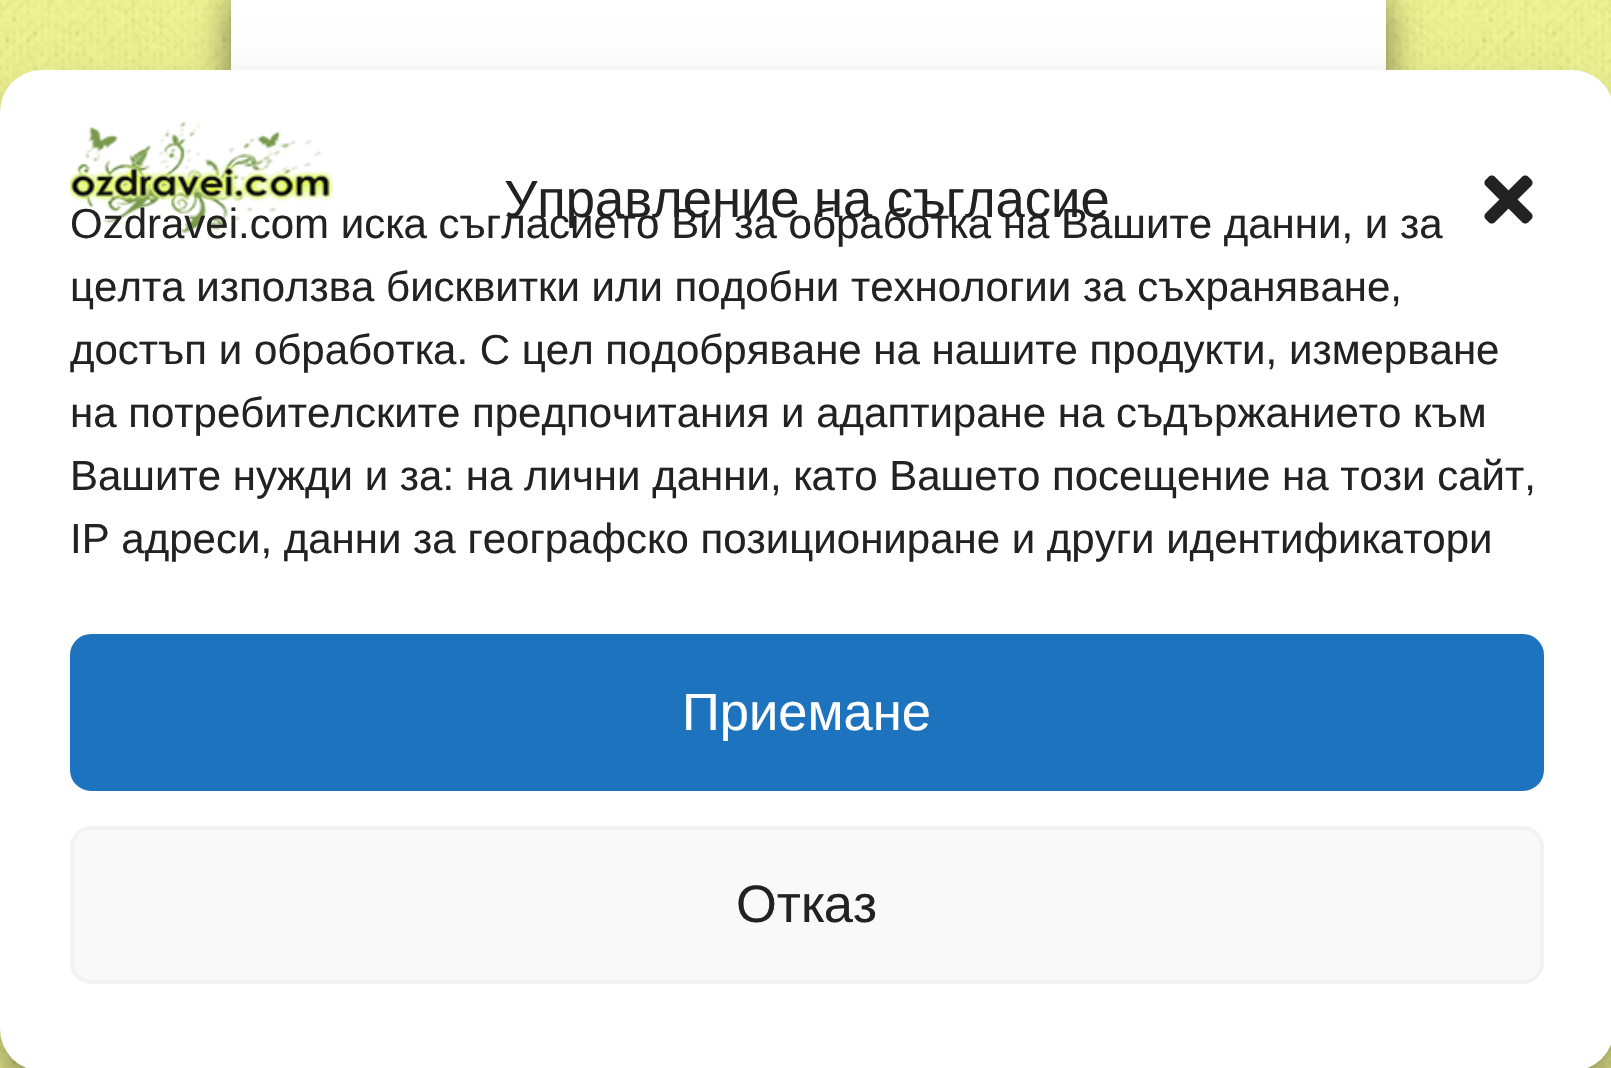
void draw(SkCanvas* canvas) {
    SkPaint paint;
    paint.setAntiAlias(true);
    auto face = [&](const char* family, int weight, float size, bool italic = false) {
        SkFontStyle style(weight, SkFontStyle::kNormal_Width,
            italic ? SkFontStyle::kItalic_Slant : SkFontStyle::kUpright_Slant);
        SkFont result(fontMgr->matchFamilyStyle(family, style), size);
        result.setSubpixel(true);
        return result;
    };
    auto write = [&](const char* s, float x, float y, const SkFont& font, SkColor color) {
        SkPaint ink(SkColor4f::FromColor(color));
        ink.setAntiAlias(true);
        canvas->drawString(s, x, y, font, ink);
    };
    auto block = [&](float x, float y, float w, float h, SkColor color) {
        SkPaint ink(SkColor4f::FromColor(color));
        ink.setAntiAlias(true);
        canvas->drawRect(SkRect::MakeXYWH(x, y, w, h), ink);
    };
    auto card = [&](float x, float y, float w, float h, float radius, SkColor color) {
        SkPaint ink(SkColor4f::FromColor(color));
        ink.setAntiAlias(true);
        canvas->drawRoundRect(SkRect::MakeXYWH(x, y, w, h), radius, radius, ink);
    };
    auto paste = [&](const char* path, float x, float y, float w, float h) {
        auto image = SkImages::DeferredFromEncodedData(SkData::MakeFromFileName(path));
        canvas->drawImageRect(image, SkRect::MakeXYWH(x, y, w, h), SkSamplingOptions());
    };
    canvas->clear(SkColorSetRGB(246, 250, 123));
    paste("pic1.png", 0, 0, 1611, 1068);
    paint.setColor(SkColorSetARGB(128, 0, 0, 0));
    paint.setMaskFilter(SkMaskFilter::MakeBlur(kNormal_SkBlurStyle, 17.5f));
    canvas->drawRect(SkRect::MakeXYWH(231, 0, 1155, 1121), paint);
    paint.setMaskFilter(nullptr);
    block(231, 0, 1155, 70, SK_ColorWHITE);
    paint.setColor(SkColorSetARGB(59, 0, 0, 0));
    paint.setMaskFilter(SkMaskFilter::MakeBlur(kNormal_SkBlurStyle, 10.5f));
    canvas->drawRoundRect(SkRect::MakeXYWH(0, 91, 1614, 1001), 42, 42, paint);
    paint.setMaskFilter(nullptr);
    paint.setColor(SkColorSetARGB(48, 0, 0, 0));
    paint.setMaskFilter(SkMaskFilter::MakeBlur(kNormal_SkBlurStyle, 35));
    canvas->drawRoundRect(SkRect::MakeXYWH(0, 105, 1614, 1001), 42, 42, paint);
    paint.setMaskFilter(nullptr);
    card(0, 70, 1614, 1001, 42, SK_ColorWHITE);
    paste("pic2.png", 70, 122, 263, 112);
    auto kFont1 = face("Liberation Sans", 400, 52.5f);
    write("Управление на съгласие", 504, 217, kFont1, SkColorSetRGB(34, 34, 34));
    paste("pic3.png", 1484, 175, 49, 49);
    auto kFont2 = face("Liberation Sans", 400, 42);
    write("Ozdravei.com иска съгласието Ви за обработка на Вашите данни, и за", 70, 238, kFont2, SkColorSetRGB(34, 34, 34));
    write("целта използва бисквитки или подобни технологии за съхраняване,", 70, 301, kFont2, SkColorSetRGB(34, 34, 34));
    write("достъп и обработка. С цел подобряване на нашите продукти, измерване", 70, 364, kFont2, SkColorSetRGB(34, 34, 34));
    write("на потребителските предпочитания и адаптиране на съдържанието към", 70, 427, kFont2, SkColorSetRGB(34, 34, 34));
    write("Вашите нужди и за: на лични данни, като Вашето посещение на този сайт,", 70, 490, kFont2, SkColorSetRGB(34, 34, 34));
    write("IP адреси, данни за географско позициониране и други идентификатори", 70, 553, kFont2, SkColorSetRGB(34, 34, 34));
    paint.setColor(SkColorSetRGB(30, 115, 190));
    canvas->drawRoundRect(SkRect::MakeXYWH(72, 636, 1470, 153), 19, 19, paint);
    paint.setStyle(SkPaint::kStroke_Style);
    paint.setStrokeWidth(4);
    canvas->drawRoundRect(SkRect::MakeXYWH(72, 636, 1470, 153), 19, 19, paint);
    write("Приемане", 682, 730, kFont1, SK_ColorWHITE);
    paint.setStyle(SkPaint::kFill_Style);
    paint.setColor(SkColorSetRGB(249, 249, 249));
    canvas->drawRoundRect(SkRect::MakeXYWH(72, 828, 1470, 154), 19, 19, paint);
    paint.setStyle(SkPaint::kStroke_Style);
    paint.setColor(SkColorSetRGB(242, 242, 242));
    canvas->drawRoundRect(SkRect::MakeXYWH(72, 828, 1470, 154), 19, 19, paint);
    write("Отказ", 736, 922, kFont1, SkColorSetRGB(34, 34, 34));
}
